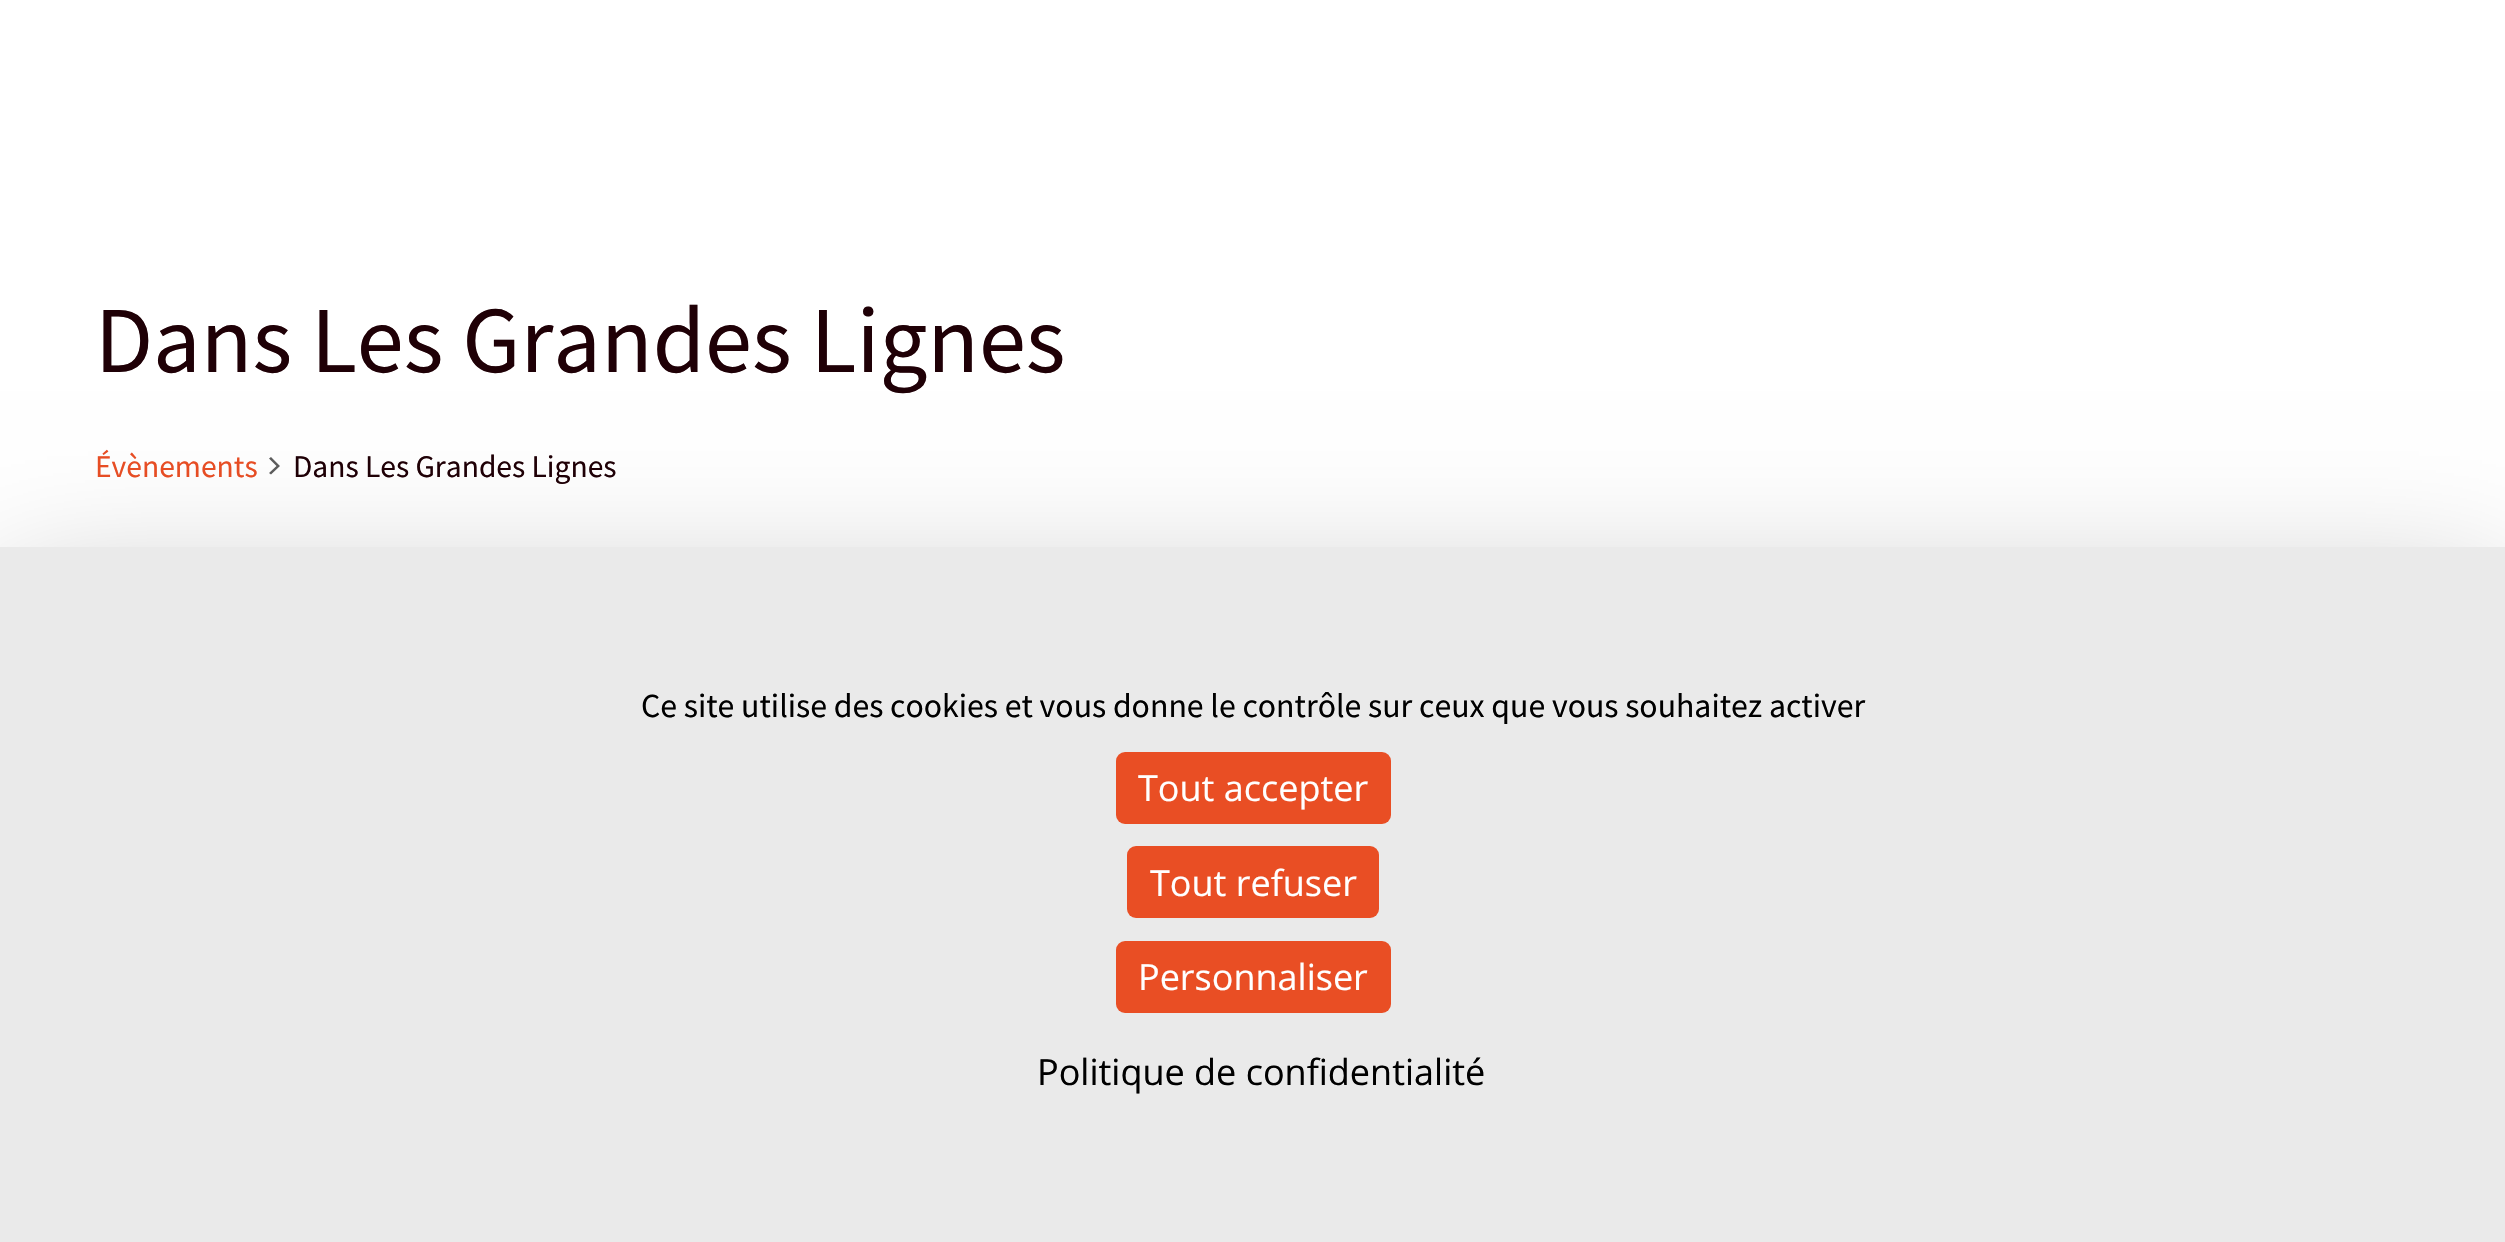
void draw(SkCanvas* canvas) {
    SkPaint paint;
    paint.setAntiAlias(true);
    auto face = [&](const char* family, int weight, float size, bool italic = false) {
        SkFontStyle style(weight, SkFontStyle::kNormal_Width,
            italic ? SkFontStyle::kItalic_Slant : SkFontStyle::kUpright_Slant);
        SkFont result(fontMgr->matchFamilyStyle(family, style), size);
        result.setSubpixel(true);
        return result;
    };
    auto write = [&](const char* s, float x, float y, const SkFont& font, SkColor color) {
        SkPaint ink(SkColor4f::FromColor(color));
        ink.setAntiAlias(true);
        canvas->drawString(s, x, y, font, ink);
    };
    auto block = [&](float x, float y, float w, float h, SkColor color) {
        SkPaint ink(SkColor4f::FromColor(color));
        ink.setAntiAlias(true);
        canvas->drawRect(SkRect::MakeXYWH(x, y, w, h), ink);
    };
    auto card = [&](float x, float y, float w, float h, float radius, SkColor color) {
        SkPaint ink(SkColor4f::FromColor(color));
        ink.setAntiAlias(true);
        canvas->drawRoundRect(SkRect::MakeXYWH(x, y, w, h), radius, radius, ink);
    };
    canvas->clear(SK_ColorWHITE);
    auto kFont1 = face("Source Sans Pro", 400, 94.5f);
    write("Dans Les Grandes Lignes", 95, 372, kFont1, SkColorSetRGB(31, 0, 6));
    auto kFont2 = face("Source Sans Pro", 400, 31.5f);
    write("Évènements", 95, 477, kFont2, SkColorSetRGB(233, 78, 36));
    paint.setColor(SkColorSetRGB(93, 93, 93));
    canvas->drawPath(SkPathBuilder().moveTo(269, 458.5f).lineTo(271, 457).lineTo(280, 466).lineTo(271, 474.5f).lineTo(269, 473).lineTo(276.5f, 466).close().detach(), paint);
    write("Dans Les Grandes Lignes", 293, 477, kFont2, SkColorSetRGB(31, 0, 6));
    paint.setColor(SkColorSetARGB(64, 0, 0, 0));
    paint.setMaskFilter(SkMaskFilter::MakeBlur(kNormal_SkBlurStyle, 67.5f));
    canvas->drawRect(SkRect::MakeXYWH(0, 592, 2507, 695), paint);
    paint.setMaskFilter(nullptr);
    block(0, 547, 2505, 695, SkColorSetRGB(234, 234, 234));
    auto kFont3 = face("Source Sans Pro", 400, 33.75f);
    write("Ce site utilise des cookies et vous donne le contrôle sur ceux que vous souhaitez activer", 641, 717, kFont3, SK_ColorBLACK);
    card(1116, 752, 275, 72, 9, SkColorSetRGB(233, 78, 36));
    auto kFont4 = face("Open Sans", 400, 36);
    write("Tout accepter", 1138, 801, kFont4, SK_ColorWHITE);
    card(1127, 846, 252, 72, 9, SkColorSetRGB(233, 78, 36));
    write("Tout refuser", 1150, 896, kFont4, SK_ColorWHITE);
    card(1116, 941, 275, 72, 9, SkColorSetRGB(233, 78, 36));
    write("Personnaliser", 1138, 990, kFont4, SK_ColorWHITE);
    write("Politique de confidentialité", 1037, 1085, kFont4, SK_ColorBLACK);
}
